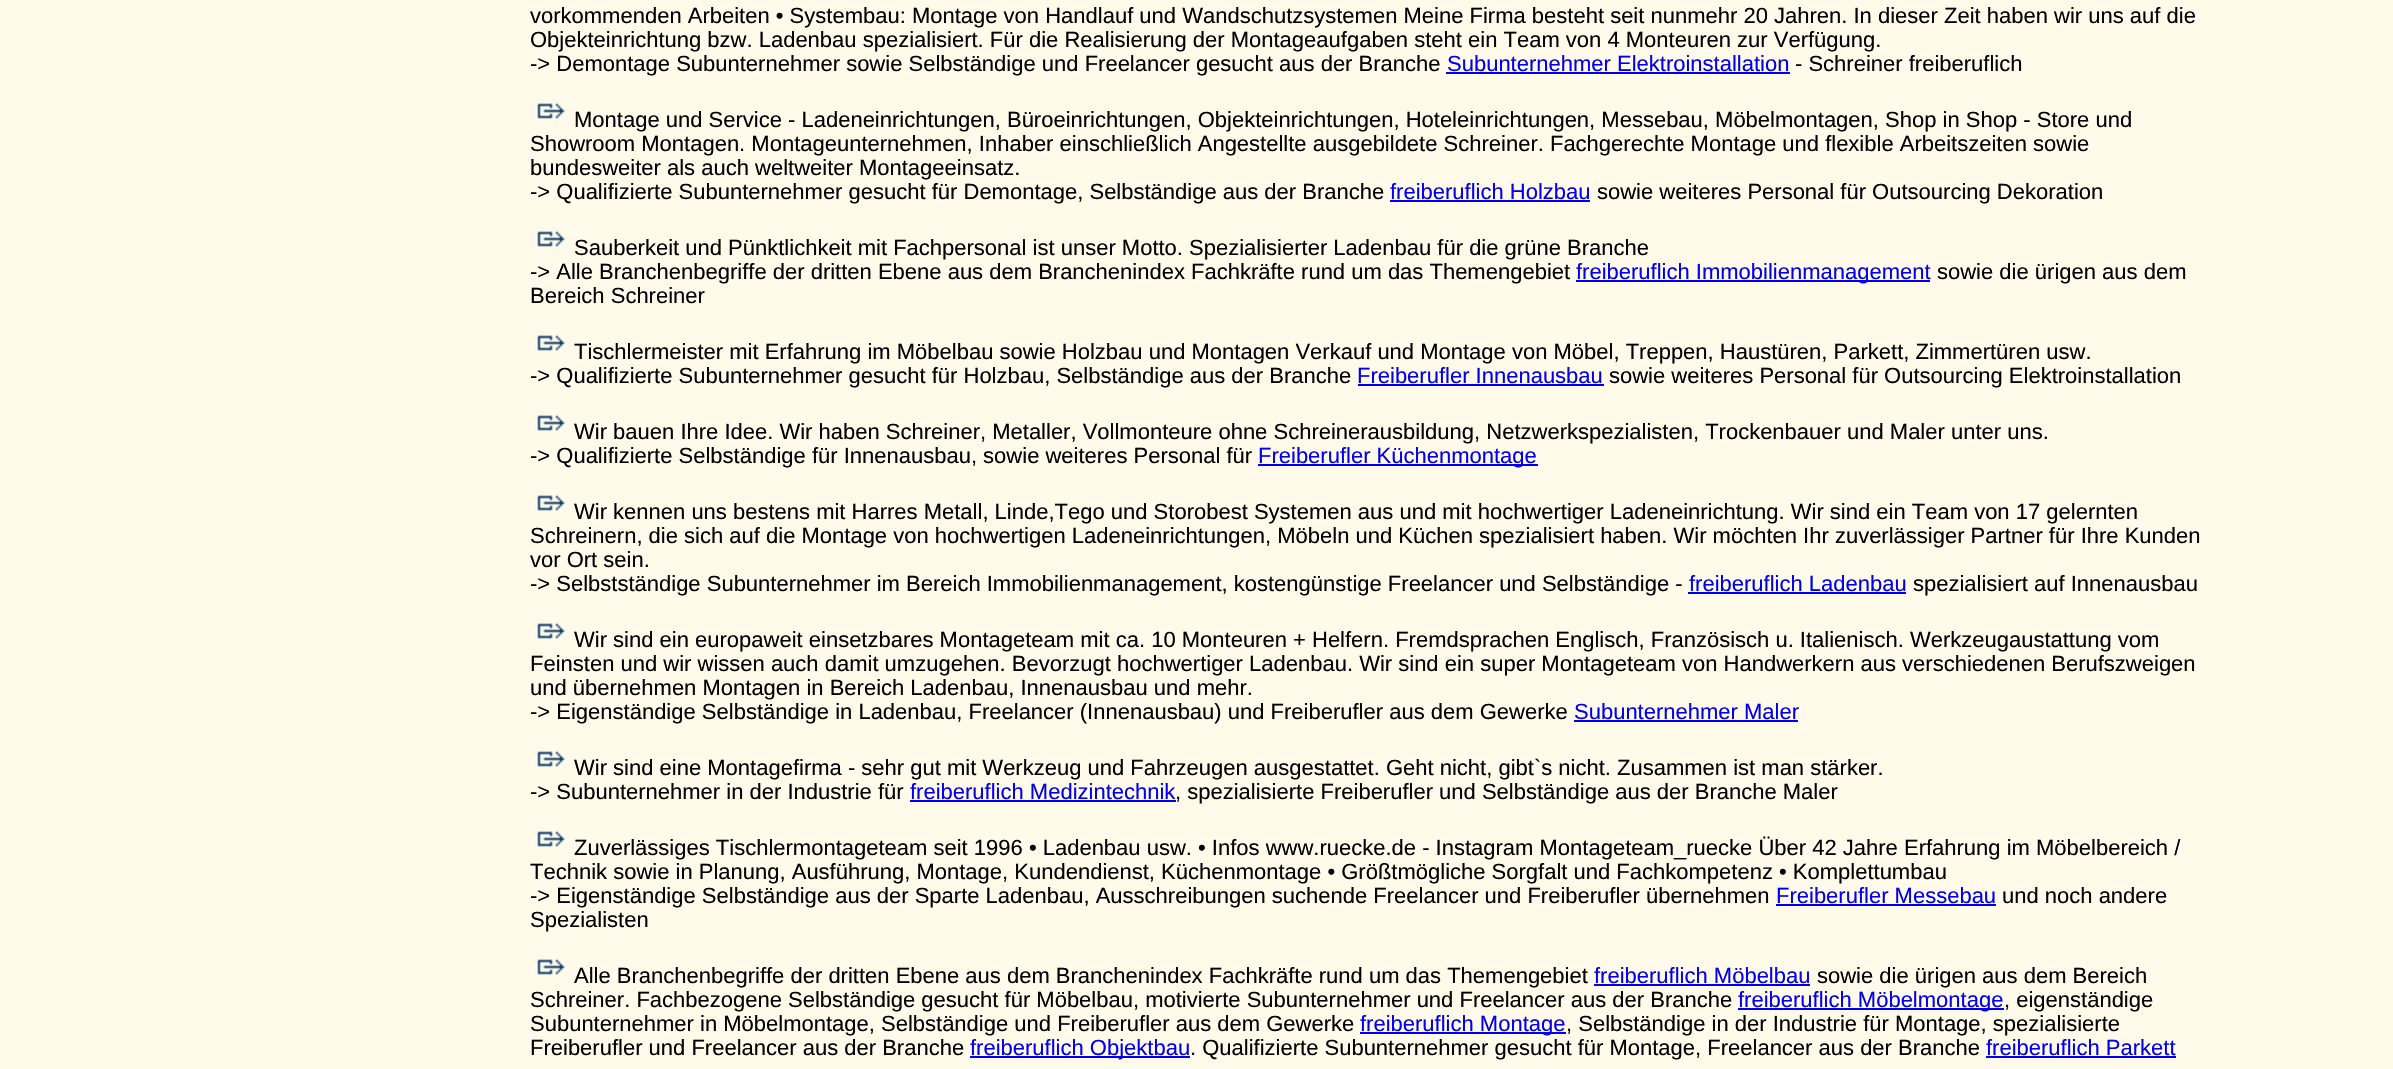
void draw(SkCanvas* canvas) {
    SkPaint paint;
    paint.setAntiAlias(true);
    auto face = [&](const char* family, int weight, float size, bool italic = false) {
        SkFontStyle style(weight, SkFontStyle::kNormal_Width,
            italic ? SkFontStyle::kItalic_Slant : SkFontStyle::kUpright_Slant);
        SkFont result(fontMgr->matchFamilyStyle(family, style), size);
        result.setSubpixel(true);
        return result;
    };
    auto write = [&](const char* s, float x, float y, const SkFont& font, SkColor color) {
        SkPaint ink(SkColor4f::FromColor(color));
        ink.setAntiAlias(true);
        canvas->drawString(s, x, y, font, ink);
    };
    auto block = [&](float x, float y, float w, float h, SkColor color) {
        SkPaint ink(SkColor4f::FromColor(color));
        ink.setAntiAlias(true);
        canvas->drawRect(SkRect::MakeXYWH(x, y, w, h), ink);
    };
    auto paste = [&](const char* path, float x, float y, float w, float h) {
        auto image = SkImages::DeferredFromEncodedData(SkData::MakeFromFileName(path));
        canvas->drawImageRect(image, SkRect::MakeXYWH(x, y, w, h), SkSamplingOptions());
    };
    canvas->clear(SkColorSetRGB(255, 250, 234));
    auto kFont1 = face("Liberation Sans", 400, 22);
    write("vorkommenden Arbeiten • Systembau: Montage von Handlauf und Wandschutzsystemen Meine Firma besteht seit nunmehr 20 Jahren. In dieser Zeit haben wir uns auf die", 530, 23, kFont1, SK_ColorBLACK);
    write("Objekteinrichtung bzw. Ladenbau spezialisiert. Für die Realisierung der Montageaufgaben steht ein Team von 4 Monteuren zur Verfügung.", 530, 47, kFont1, SK_ColorBLACK);
    write("-> Demontage Subunternehmer sowie Selbständige und Freelancer gesucht aus der Branche", 530, 71, kFont1, SK_ColorBLACK);
    write("Subunternehmer Elektroinstallation", 1447, 71, kFont1, SkColorSetRGB(0, 0, 238));
    block(1446, 72, 344, 2, SkColorSetRGB(0, 0, 238));
    write("- Schreiner freiberuflich", 1795, 71, kFont1, SK_ColorBLACK);
    paste("pic1.png", 537, 103, 28, 16);
    write("Montage und Service - Ladeneinrichtungen, Büroeinrichtungen, Objekteinrichtungen, Hoteleinrichtungen, Messebau, Möbelmontagen, Shop in Shop - Store und", 574, 127, kFont1, SK_ColorBLACK);
    write("Showroom Montagen. Montageunternehmen, Inhaber einschließlich Angestellte ausgebildete Schreiner. Fachgerechte Montage und flexible Arbeitszeiten sowie", 530, 151, kFont1, SK_ColorBLACK);
    write("bundesweiter als auch weltweiter Montageeinsatz.", 530, 175, kFont1, SK_ColorBLACK);
    write("-> Qualifizierte Subunternehmer gesucht für Demontage, Selbständige aus der Branche", 530, 199, kFont1, SK_ColorBLACK);
    write("freiberuflich Holzbau", 1390, 199, kFont1, SkColorSetRGB(0, 0, 238));
    block(1390, 200, 200, 2, SkColorSetRGB(0, 0, 238));
    write("sowie weiteres Personal für Outsourcing Dekoration", 1597, 199, kFont1, SK_ColorBLACK);
    paste("pic1.png", 537, 231, 28, 16);
    write("Sauberkeit und Pünktlichkeit mit Fachpersonal ist unser Motto. Spezialisierter Ladenbau für die grüne Branche", 574, 255, kFont1, SK_ColorBLACK);
    write("-> Alle Branchenbegriffe der dritten Ebene aus dem Branchenindex Fachkräfte rund um das Themengebiet", 530, 279, kFont1, SK_ColorBLACK);
    block(1576, 280, 354, 2, SkColorSetRGB(0, 0, 238));
    write("freiberuflich Immobilienmanagement", 1576, 279, kFont1, SkColorSetRGB(0, 0, 238));
    write("sowie die ürigen aus dem", 1937, 279, kFont1, SK_ColorBLACK);
    write("Bereich Schreiner", 530, 303, kFont1, SK_ColorBLACK);
    paste("pic1.png", 537, 335, 28, 16);
    write("Tischlermeister mit Erfahrung im Möbelbau sowie Holzbau und Montagen Verkauf und Montage von Möbel, Treppen, Haustüren, Parkett, Zimmertüren usw.", 574, 359, kFont1, SK_ColorBLACK);
    write("-> Qualifizierte Subunternehmer gesucht für Holzbau, Selbständige aus der Branche", 530, 383, kFont1, SK_ColorBLACK);
    write("Freiberufler Innenausbau", 1357, 383, kFont1, SkColorSetRGB(0, 0, 238));
    block(1358, 384, 246, 2, SkColorSetRGB(0, 0, 238));
    write("sowie weiteres Personal für Outsourcing Elektroinstallation", 1609, 383, kFont1, SK_ColorBLACK);
    paste("pic1.png", 537, 415, 28, 16);
    write("Wir bauen Ihre Idee. Wir haben Schreiner, Metaller, Vollmonteure ohne Schreinerausbildung, Netzwerkspezialisten, Trockenbauer und Maler unter uns.", 574, 439, kFont1, SK_ColorBLACK);
    write("-> Qualifizierte Selbständige für Innenausbau, sowie weiteres Personal für", 530, 463, kFont1, SK_ColorBLACK);
    block(1258, 464, 280, 2, SkColorSetRGB(0, 0, 238));
    write("Freiberufler Küchenmontage", 1258, 463, kFont1, SkColorSetRGB(0, 0, 238));
    paste("pic1.png", 537, 495, 28, 16);
    write("Wir kennen uns bestens mit Harres Metall, Linde,Tego und Storobest Systemen aus und mit hochwertiger Ladeneinrichtung. Wir sind ein Team von 17 gelernten", 574, 519, kFont1, SK_ColorBLACK);
    write("Schreinern, die sich auf die Montage von hochwertigen Ladeneinrichtungen, Möbeln und Küchen spezialisiert haben. Wir möchten Ihr zuverlässiger Partner für Ihre Kunden", 530, 543, kFont1, SK_ColorBLACK);
    write("vor Ort sein.", 530, 567, kFont1, SK_ColorBLACK);
    write("-> Selbstständige Subunternehmer im Bereich Immobilienmanagement, kostengünstige Freelancer und Selbständige -", 530, 591, kFont1, SK_ColorBLACK);
    write("freiberuflich Ladenbau", 1689, 591, kFont1, SkColorSetRGB(0, 0, 238));
    block(1688, 592, 218, 2, SkColorSetRGB(0, 0, 238));
    write("spezialisiert auf Innenausbau", 1913, 591, kFont1, SK_ColorBLACK);
    paste("pic1.png", 537, 623, 28, 16);
    write("Wir sind ein europaweit einsetzbares Montageteam mit ca. 10 Monteuren + Helfern. Fremdsprachen Englisch, Französisch u. Italienisch. Werkzeugaustattung vom", 574, 647, kFont1, SK_ColorBLACK);
    write("Feinsten und wir wissen auch damit umzugehen. Bevorzugt hochwertiger Ladenbau. Wir sind ein super Montageteam von Handwerkern aus verschiedenen Berufszweigen", 530, 671, kFont1, SK_ColorBLACK);
    write("und übernehmen Montagen in Bereich Ladenbau, Innenausbau und mehr.", 530, 695, kFont1, SK_ColorBLACK);
    write("-> Eigenständige Selbständige in Ladenbau, Freelancer (Innenausbau) und Freiberufler aus dem Gewerke", 530, 719, kFont1, SK_ColorBLACK);
    write("Subunternehmer Maler", 1574, 719, kFont1, SkColorSetRGB(0, 0, 238));
    block(1574, 720, 224, 2, SkColorSetRGB(0, 0, 238));
    paste("pic1.png", 537, 751, 28, 16);
    write("Wir sind eine Montagefirma - sehr gut mit Werkzeug und Fahrzeugen ausgestattet. Geht nicht, gibt`s nicht. Zusammen ist man stärker.", 574, 775, kFont1, SK_ColorBLACK);
    write("-> Subunternehmer in der Industrie für", 530, 799, kFont1, SK_ColorBLACK);
    write("freiberuflich Medizintechnik", 910, 799, kFont1, SkColorSetRGB(0, 0, 238));
    block(910, 800, 266, 2, SkColorSetRGB(0, 0, 238));
    write(", spezialisierte Freiberufler und Selbständige aus der Branche Maler", 1175, 799, kFont1, SK_ColorBLACK);
    paste("pic1.png", 537, 831, 28, 16);
    write("Zuverlässiges Tischlermontageteam seit 1996 • Ladenbau usw. • Infos www.ruecke.de - Instagram Montageteam_ruecke Über 42 Jahre Erfahrung im Möbelbereich /", 574, 855, kFont1, SK_ColorBLACK);
    write("Technik sowie in Planung, Ausführung, Montage, Kundendienst, Küchenmontage • Größtmögliche Sorgfalt und Fachkompetenz • Komplettumbau", 530, 879, kFont1, SK_ColorBLACK);
    write("-> Eigenständige Selbständige aus der Sparte Ladenbau, Ausschreibungen suchende Freelancer und Freiberufler übernehmen", 530, 903, kFont1, SK_ColorBLACK);
    write("Freiberufler Messebau", 1776, 903, kFont1, SkColorSetRGB(0, 0, 238));
    block(1776, 904, 220, 2, SkColorSetRGB(0, 0, 238));
    write("und noch andere", 2002, 903, kFont1, SK_ColorBLACK);
    write("Spezialisten", 530, 927, kFont1, SK_ColorBLACK);
    paste("pic1.png", 537, 959, 28, 16);
    write("Alle Branchenbegriffe der dritten Ebene aus dem Branchenindex Fachkräfte rund um das Themengebiet", 574, 983, kFont1, SK_ColorBLACK);
    write("freiberuflich Möbelbau", 1594, 983, kFont1, SkColorSetRGB(0, 0, 238));
    block(1594, 984, 216, 2, SkColorSetRGB(0, 0, 238));
    write("sowie die ürigen aus dem Bereich", 1817, 983, kFont1, SK_ColorBLACK);
    write("Schreiner. Fachbezogene Selbständige gesucht für Möbelbau, motivierte Subunternehmer und Freelancer aus der Branche", 530, 1007, kFont1, SK_ColorBLACK);
    block(1738, 1008, 266, 2, SkColorSetRGB(0, 0, 238));
    write("freiberuflich Möbelmontage", 1738, 1007, kFont1, SkColorSetRGB(0, 0, 238));
    write(", eigenständige", 2004, 1007, kFont1, SK_ColorBLACK);
    write("Subunternehmer in Möbelmontage, Selbständige und Freiberufler aus dem Gewerke", 530, 1031, kFont1, SK_ColorBLACK);
    block(1360, 1032, 206, 2, SkColorSetRGB(0, 0, 238));
    write("freiberuflich Montage", 1360, 1031, kFont1, SkColorSetRGB(0, 0, 238));
    write(", Selbständige in der Industrie für Montage, spezialisierte", 1566, 1031, kFont1, SK_ColorBLACK);
    write("Freiberufler und Freelancer aus der Branche", 530, 1055, kFont1, SK_ColorBLACK);
    block(970, 1056, 220, 2, SkColorSetRGB(0, 0, 238));
    write("freiberuflich Objektbau", 970, 1055, kFont1, SkColorSetRGB(0, 0, 238));
    write(". Qualifizierte Subunternehmer gesucht für Montage, Freelancer aus der Branche", 1190, 1055, kFont1, SK_ColorBLACK);
    write("freiberuflich Parkett", 1986, 1055, kFont1, SkColorSetRGB(0, 0, 238));
    block(1986, 1056, 190, 2, SkColorSetRGB(0, 0, 238));
}
